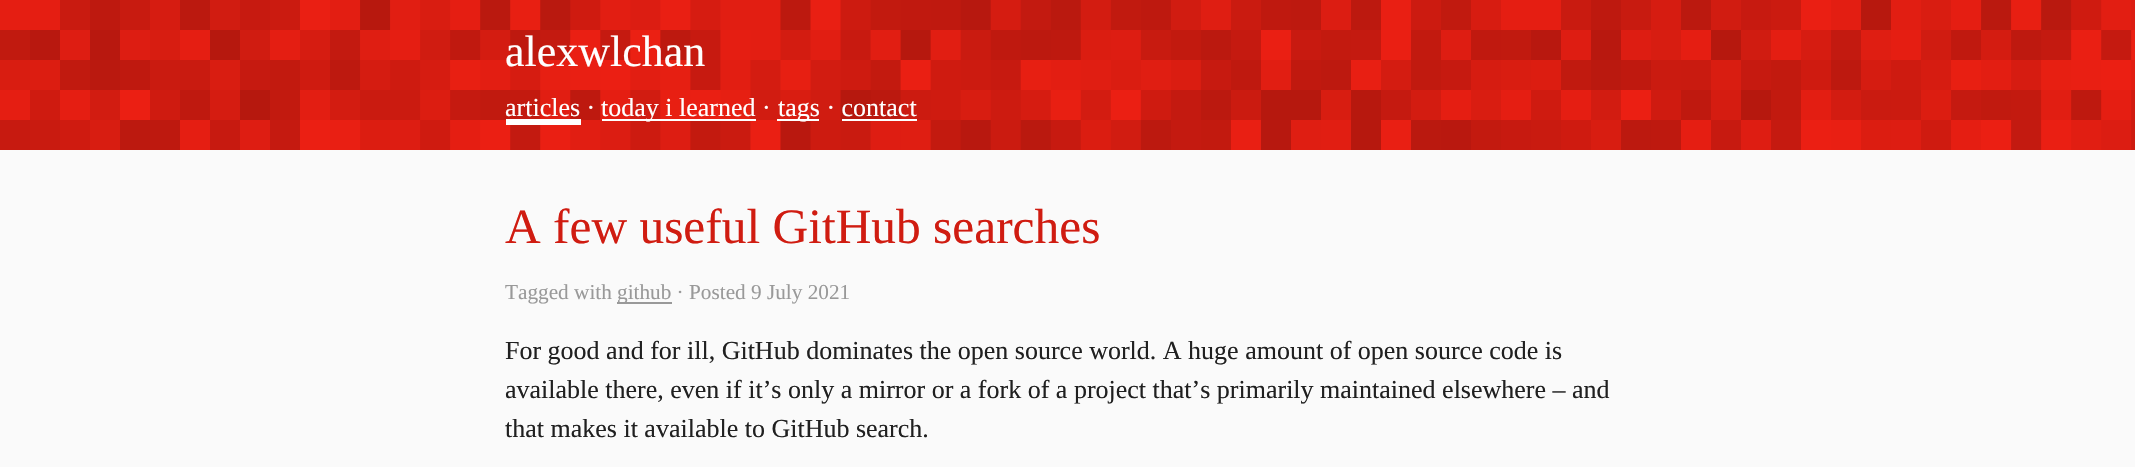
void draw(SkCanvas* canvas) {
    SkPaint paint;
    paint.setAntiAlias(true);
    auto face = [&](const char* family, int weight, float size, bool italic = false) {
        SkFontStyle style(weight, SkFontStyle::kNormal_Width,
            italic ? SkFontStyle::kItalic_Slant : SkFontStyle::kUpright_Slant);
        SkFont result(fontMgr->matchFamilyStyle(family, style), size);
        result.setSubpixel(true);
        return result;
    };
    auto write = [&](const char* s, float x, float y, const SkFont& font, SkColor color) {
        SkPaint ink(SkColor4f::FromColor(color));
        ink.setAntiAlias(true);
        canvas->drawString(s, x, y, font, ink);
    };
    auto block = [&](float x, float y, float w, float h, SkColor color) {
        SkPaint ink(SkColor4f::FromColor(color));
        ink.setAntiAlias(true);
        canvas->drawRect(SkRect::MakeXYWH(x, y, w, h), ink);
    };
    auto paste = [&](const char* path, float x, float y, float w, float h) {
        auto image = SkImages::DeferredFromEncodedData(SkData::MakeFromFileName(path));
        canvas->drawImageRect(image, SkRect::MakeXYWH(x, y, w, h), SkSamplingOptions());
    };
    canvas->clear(SkColorSetRGB(250, 250, 250));
    paste("pic1.png", 0, 0, 2135, 150);
    auto kFont1 = face("Liberation Serif", 400, 44);
    write("alexwlchan", 505, 66, kFont1, SK_ColorWHITE);
    auto kFont2 = face("Liberation Serif", 400, 26);
    write("articles ·", 505, 116, kFont2, SK_ColorWHITE);
    block(506, 119, 75, 6, SK_ColorWHITE);
    block(602, 119, 154, 2, SK_ColorWHITE);
    write("today i learned ·", 601, 116, kFont2, SK_ColorWHITE);
    block(777, 119, 42, 2, SK_ColorWHITE);
    write("tags · contact", 778, 116, kFont2, SK_ColorWHITE);
    block(842, 119, 75, 2, SK_ColorWHITE);
    auto kFont3 = face("Liberation Serif", 400, 49.4f);
    write("A few useful GitHub searches", 505, 243, kFont3, SkColorSetRGB(208, 28, 17));
    auto kFont4 = face("Liberation Serif", 400, 21.25f);
    write("Tagged with", 505, 299, kFont4, SkColorSetRGB(153, 153, 153));
    block(617, 302, 55, 2, SkColorSetRGB(153, 153, 153));
    write("github · Posted 9 July 2021", 617, 299, kFont4, SkColorSetRGB(153, 153, 153));
    write("For good and for ill, GitHub dominates the open source world. A huge amount of open source code is", 505, 359, kFont2, SkColorSetRGB(32, 32, 32));
    write("available there, even if it’s only a mirror or a fork of a project that’s primarily maintained elsewhere – and", 505, 398, kFont2, SkColorSetRGB(32, 32, 32));
    write("that makes it available to GitHub search.", 505, 437, kFont2, SkColorSetRGB(32, 32, 32));
}
